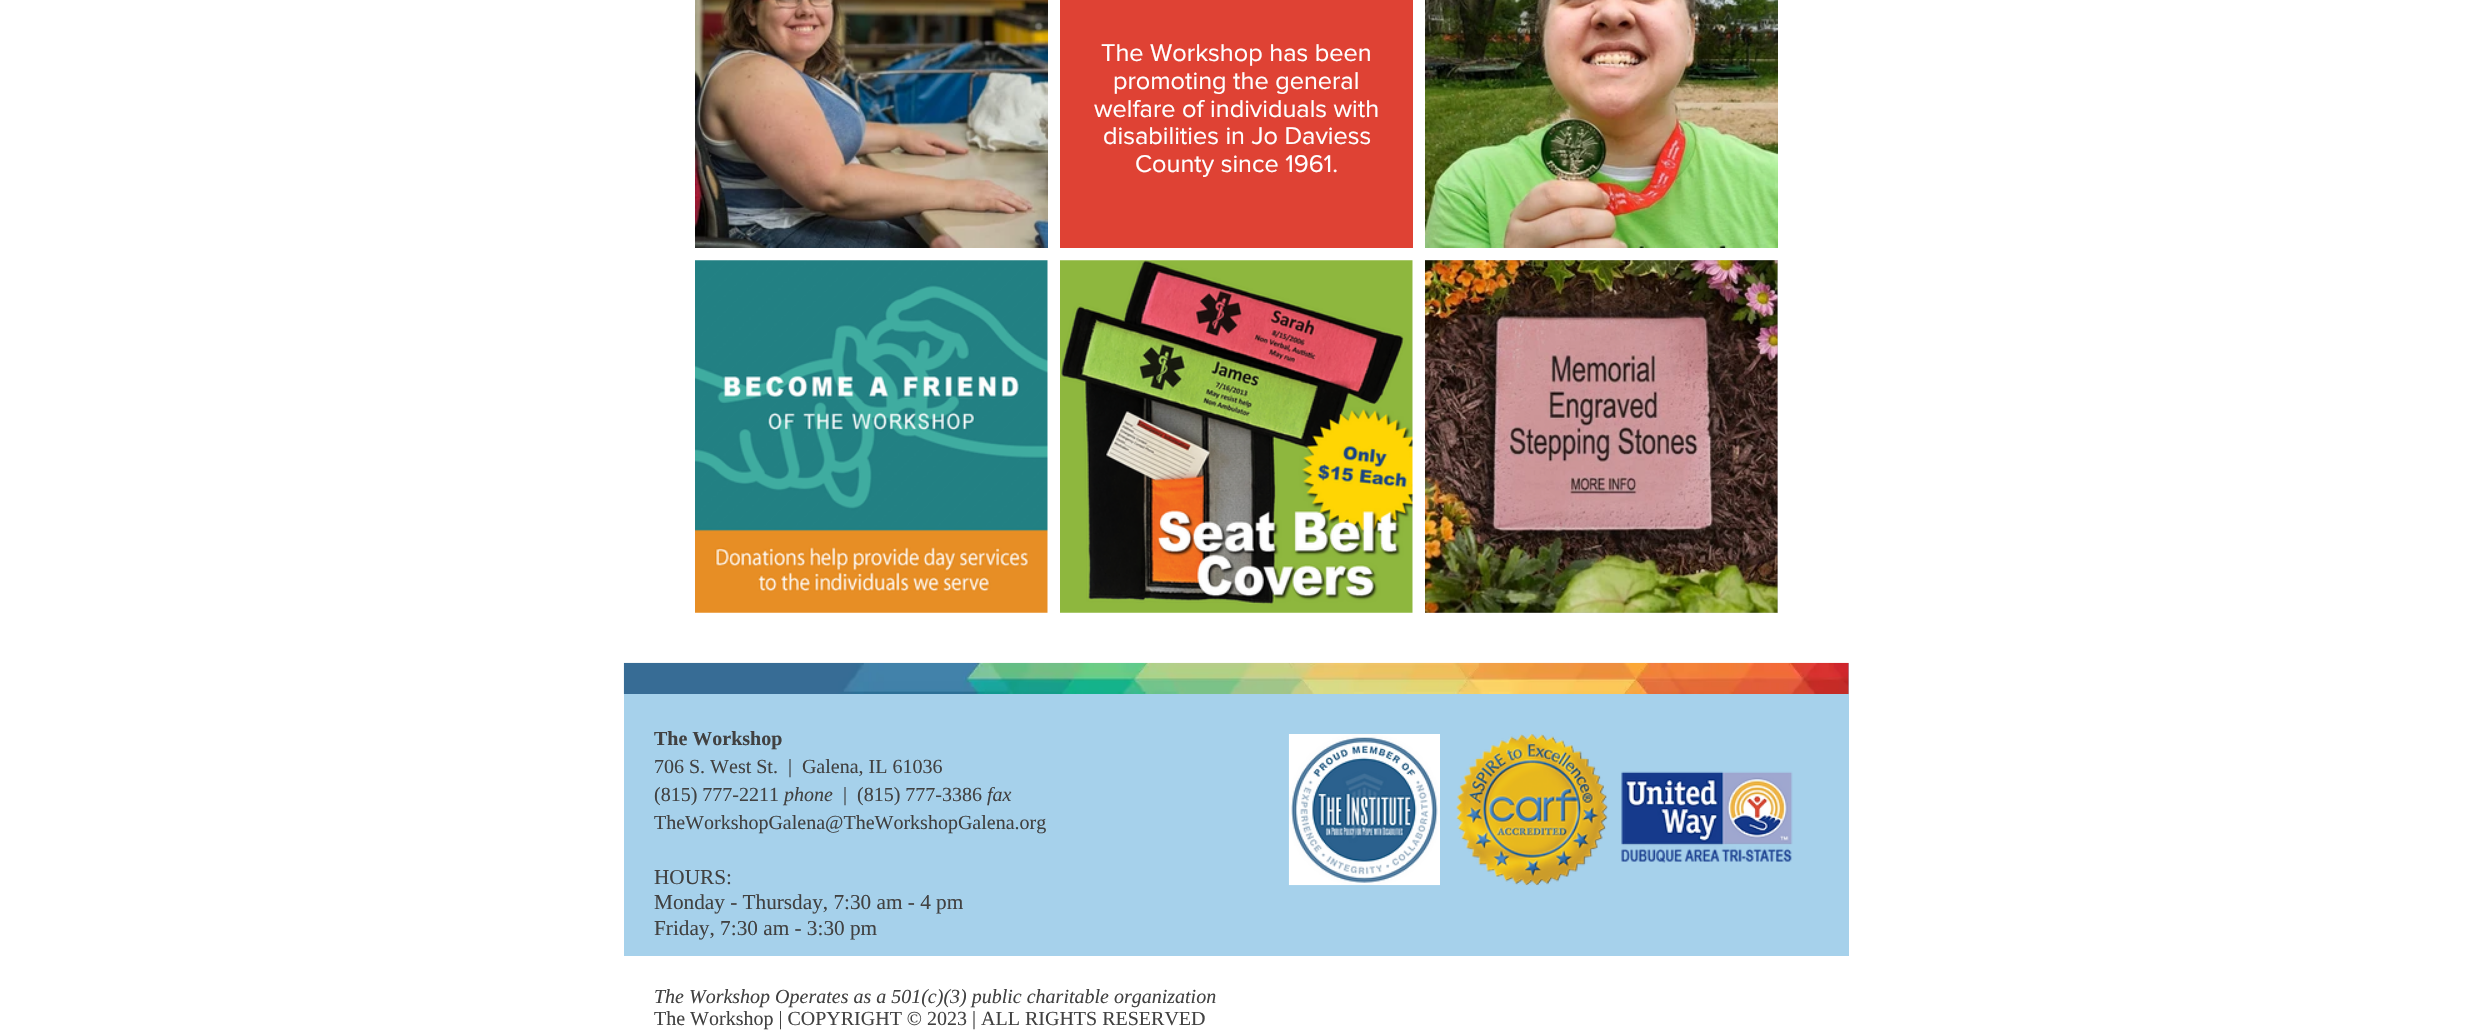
void draw(SkCanvas* canvas) {
    SkPaint paint;
    paint.setAntiAlias(true);
    auto face = [&](const char* family, int weight, float size, bool italic = false) {
        SkFontStyle style(weight, SkFontStyle::kNormal_Width,
            italic ? SkFontStyle::kItalic_Slant : SkFontStyle::kUpright_Slant);
        SkFont result(fontMgr->matchFamilyStyle(family, style), size);
        result.setSubpixel(true);
        return result;
    };
    auto write = [&](const char* s, float x, float y, const SkFont& font, SkColor color) {
        SkPaint ink(SkColor4f::FromColor(color));
        ink.setAntiAlias(true);
        canvas->drawString(s, x, y, font, ink);
    };
    auto block = [&](float x, float y, float w, float h, SkColor color) {
        SkPaint ink(SkColor4f::FromColor(color));
        ink.setAntiAlias(true);
        canvas->drawRect(SkRect::MakeXYWH(x, y, w, h), ink);
    };
    auto paste = [&](const char* path, float x, float y, float w, float h) {
        auto image = SkImages::DeferredFromEncodedData(SkData::MakeFromFileName(path));
        canvas->drawImageRect(image, SkRect::MakeXYWH(x, y, w, h), SkSamplingOptions());
    };
    canvas->clear(SK_ColorWHITE);
    paste("pic1.png", 695, 0, 353, 248);
    block(1060, 0, 353, 248, SkColorSetRGB(223, 66, 52));
    auto kFont1 = face("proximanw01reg", 400, 25.25f);
    write("The Workshop has been", 1101, 61, kFont1, SK_ColorWHITE);
    write("promoting the general", 1113, 89, kFont1, SK_ColorWHITE);
    write("welfare of individuals with", 1094, 117, kFont1, SK_ColorWHITE);
    write("disabilities in Jo Daviess", 1103, 144, kFont1, SK_ColorWHITE);
    write("County since 1961.", 1135, 172, kFont1, SK_ColorWHITE);
    paste("pic2.png", 1425, 0, 353, 248);
    paste("pic3.png", 695, 260, 353, 353);
    paste("pic4.png", 1060, 260, 353, 353);
    block(1425, 260, 353, 353, SkColorSetRGB(199, 199, 199));
    paste("pic5.png", 1425, 260, 353, 353);
    block(624, 663, 1225, 293, SkColorSetRGB(166, 209, 235));
    paste("pic6.png", 623, 662, 1226, 32);
    auto kFont2 = face("Liberation Serif", 700, 20);
    write("The Workshop", 654, 745, kFont2, SkColorSetRGB(65, 65, 65));
    auto kFont3 = face("Liberation Serif", 400, 20);
    write("706 S. West St.  |  Galena, IL 61036", 654, 773, kFont3, SkColorSetRGB(65, 65, 65));
    write("(815) 777-2211", 654, 801, kFont3, SkColorSetRGB(65, 65, 65));
    auto kFont4 = face("Liberation Serif", 400, 20, true);
    write("phone", 784, 801, kFont4, SkColorSetRGB(65, 65, 65));
    write("|  (815) 777-3386", 843, 801, kFont3, SkColorSetRGB(65, 65, 65));
    write("fax", 987, 801, kFont4, SkColorSetRGB(65, 65, 65));
    write("TheWorkshopGalena@TheWorkshopGalena.org", 654, 829, kFont3, SkColorSetRGB(65, 65, 65));
    auto kFont5 = face("Liberation Serif", 400, 21.25f);
    write("HOURS:", 654, 884, kFont5, SkColorSetRGB(65, 65, 65));
    write("Monday - Thursday, 7:30 am - 4 pm", 654, 909, kFont5, SkColorSetRGB(65, 65, 65));
    write("Friday, 7:30 am - 3:30 pm", 654, 935, kFont5, SkColorSetRGB(65, 65, 65));
    paste("pic7.png", 1288, 734, 152, 152);
    paste("pic8.png", 1456, 734, 152, 152);
    paste("pic9.png", 1621, 771, 172, 92);
    write("The Workshop Operates as a 501(c)(3) public charitable organization", 654, 1003, kFont4, SkColorSetRGB(65, 65, 65));
    write("The Workshop | COPYRIGHT © 2023 | ALL RIGHTS RESERVED", 654, 1025, kFont3, SkColorSetRGB(65, 65, 65));
}
